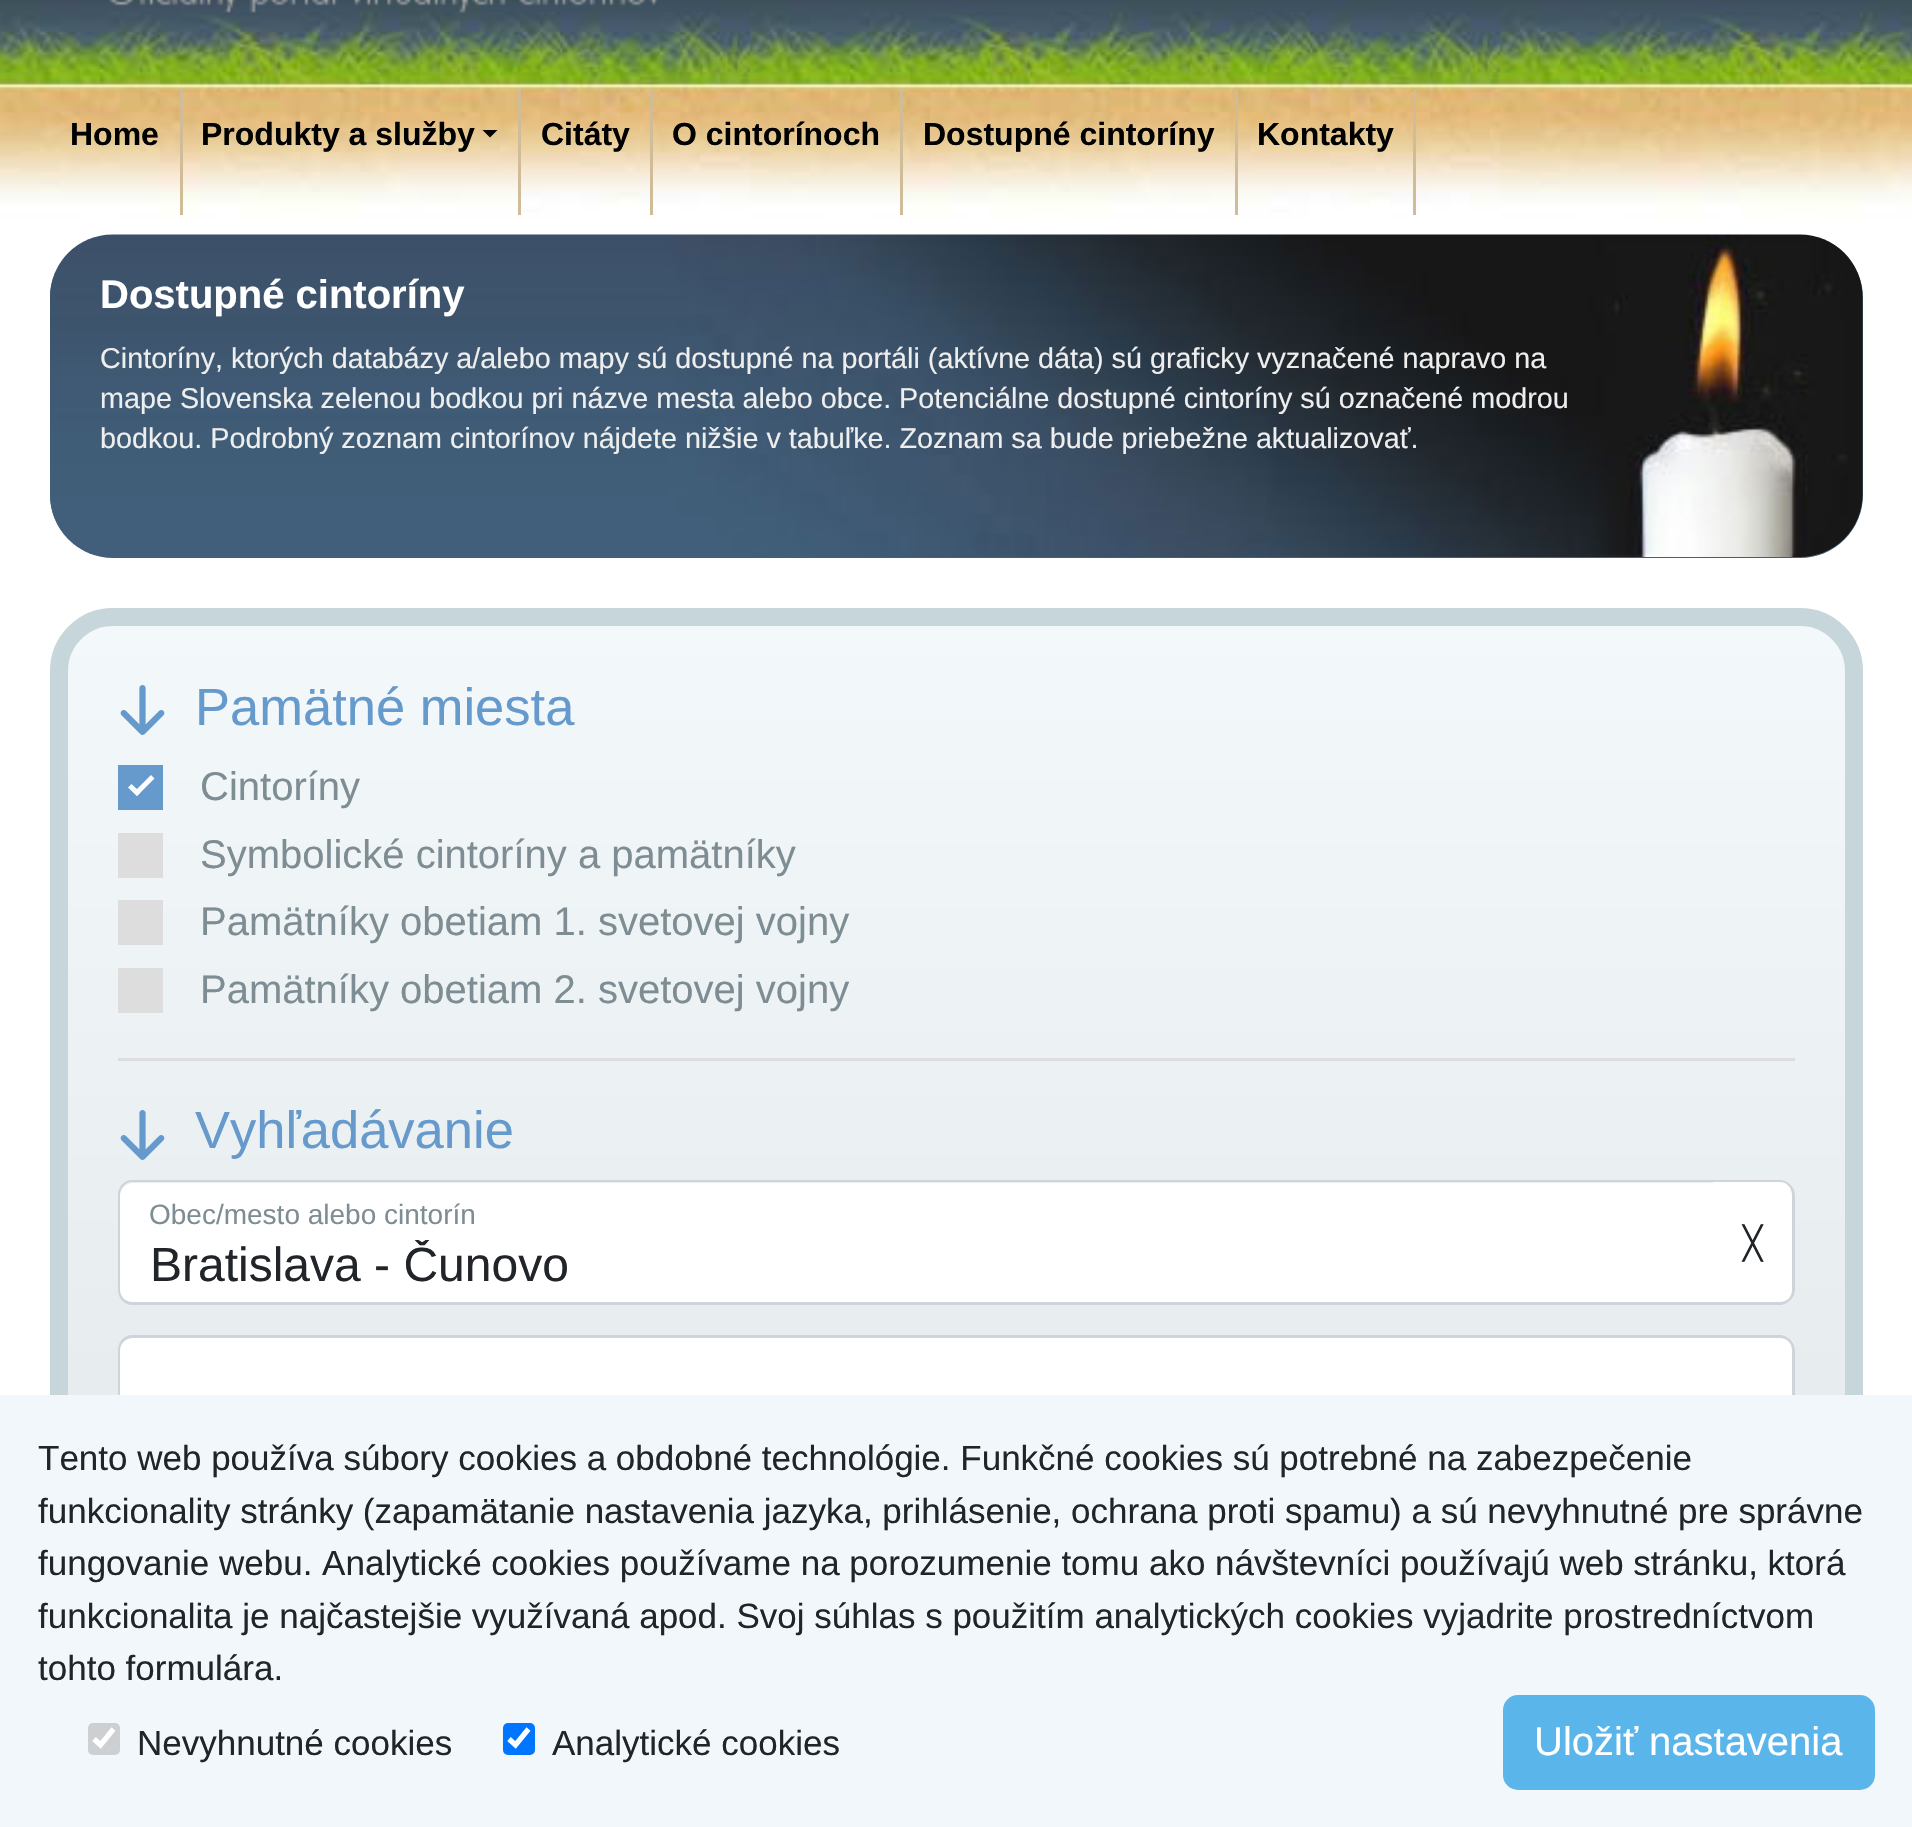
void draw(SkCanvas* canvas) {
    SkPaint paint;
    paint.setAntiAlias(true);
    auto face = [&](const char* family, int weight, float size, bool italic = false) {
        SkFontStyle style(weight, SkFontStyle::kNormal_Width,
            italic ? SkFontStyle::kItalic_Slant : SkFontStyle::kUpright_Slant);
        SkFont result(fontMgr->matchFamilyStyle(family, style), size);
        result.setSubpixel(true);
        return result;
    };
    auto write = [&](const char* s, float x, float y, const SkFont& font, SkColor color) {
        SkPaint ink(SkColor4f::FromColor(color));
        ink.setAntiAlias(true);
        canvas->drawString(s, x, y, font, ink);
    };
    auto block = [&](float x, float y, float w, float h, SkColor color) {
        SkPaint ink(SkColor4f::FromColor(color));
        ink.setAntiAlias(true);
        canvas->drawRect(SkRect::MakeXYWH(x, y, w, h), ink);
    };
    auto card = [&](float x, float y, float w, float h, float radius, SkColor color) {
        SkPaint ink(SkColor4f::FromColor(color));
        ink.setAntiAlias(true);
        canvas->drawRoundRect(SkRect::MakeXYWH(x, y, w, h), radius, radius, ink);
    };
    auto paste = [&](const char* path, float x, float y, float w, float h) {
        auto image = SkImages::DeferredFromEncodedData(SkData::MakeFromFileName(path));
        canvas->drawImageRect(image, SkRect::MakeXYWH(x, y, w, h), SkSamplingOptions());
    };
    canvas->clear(SK_ColorWHITE);
    paste("pic1.png", 0, 0, 1912, 219);
    paste("pic2.png", 109, 0, 549, 13);
    block(180, 90, 3, 125, SkColorSetRGB(208, 188, 152));
    auto kFont1 = face("Liberation Sans", 700, 32);
    write("Home", 70, 145, kFont1, SK_ColorBLACK);
    block(518, 90, 3, 125, SkColorSetRGB(208, 188, 152));
    write("Produkty a služby", 201, 145, kFont1, SK_ColorBLACK);
    paint.setColor(SK_ColorBLACK);
    canvas->drawPath(SkPathBuilder().moveTo(482.5f, 130).lineTo(497.5f, 130).lineTo(490, 137.5f).close().detach(), paint);
    block(650, 90, 3, 125, SkColorSetRGB(208, 188, 152));
    write("Citáty", 541, 145, kFont1, SK_ColorBLACK);
    block(900, 90, 3, 125, SkColorSetRGB(208, 188, 152));
    write("O cintorínoch", 672, 145, kFont1, SK_ColorBLACK);
    block(1235, 90, 3, 125, SkColorSetRGB(208, 188, 152));
    write("Dostupné cintoríny", 923, 145, kFont1, SK_ColorBLACK);
    block(1413, 90, 3, 125, SkColorSetRGB(208, 188, 152));
    write("Kontakty", 1257, 145, kFont1, SK_ColorBLACK);
    card(50, 235, 1813, 323, 63, SkColorSetRGB(65, 95, 123));
    paste("pic3.png", 50, 234, 1813, 323);
    auto kFont2 = face("Liberation Sans", 700, 40);
    write("Dostupné cintoríny", 100, 308, kFont2, SK_ColorWHITE);
    auto kFont3 = face("Liberation Sans", 400, 28.75f);
    write("Cintoríny, ktorých databázy a/alebo mapy sú dostupné na portáli (aktívne dáta) sú graficky vyznačené napravo na", 100, 368, kFont3, SkColorSetRGB(238, 238, 238));
    write("mape Slovenska zelenou bodkou pri názve mesta alebo obce. Potenciálne dostupné cintoríny sú označené modrou", 100, 408, kFont3, SkColorSetRGB(238, 238, 238));
    write("bodkou. Podrobný zoznam cintorínov nájdete nižšie v tabuľke. Zoznam sa bude priebežne aktualizovať.", 100, 448, kFont3, SkColorSetRGB(238, 238, 238));
    canvas->save();
    canvas->clipPath(SkPathBuilder().moveTo(113, 608).lineTo(1800, 608).cubicTo(1835, 608, 1863, 636, 1863, 671).lineTo(1863, 2707).cubicTo(1863, 2742, 1835, 2770, 1800, 2770).lineTo(113, 2770).cubicTo(78, 2770, 50, 2742, 50, 2707).lineTo(50, 671).cubicTo(50, 636, 78, 608, 113, 608).close().detach(), true);
    {
        const SkColor colors[] = {SkColorSetRGB(243, 248, 250), SkColorSetRGB(209, 217, 219)};
        const float stops[] = {0, 1};
        const SkPoint ends[] = {{956, 625}, {956, 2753}};
        paint.setShader(SkGradientShader::MakeLinear(ends, colors, stops, 2, SkTileMode::kClamp));
        paint.setAlpha(255);
    }
    canvas->drawRect(SkRect::MakeXYWH(50, 625, 1813, 770), paint);
    canvas->restore();
    paint.setStyle(SkPaint::kStroke_Style);
    paint.setStrokeWidth(18);
    paint.setShader(nullptr);
    paint.setColor(SkColorSetRGB(199, 214, 218));
    canvas->drawRoundRect(SkRect::MakeXYWH(59, 617, 1795, 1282), 54, 54, paint);
    paste("pic4.png", 120, 685, 45, 50);
    auto kFont4 = face("Liberation Sans", 400, 52.5f);
    write("Pamätné miesta", 195, 725, kFont4, SkColorSetRGB(102, 153, 204));
    block(118, 765, 45, 45, SkColorSetRGB(102, 153, 204));
    paint.setStyle(SkPaint::kFill_Style);
    paint.setColor(SK_ColorWHITE);
    canvas->drawPath(SkPathBuilder().moveTo(151, 775).lineTo(154.5f, 778.5f).lineTo(137, 796).lineTo(133.5f, 792.5f).close().detach(), paint);
    canvas->drawPath(SkPathBuilder().moveTo(131.5f, 784).lineTo(140.5f, 792.5f).lineTo(137, 796).lineTo(128, 787.5f).close().detach(), paint);
    auto kFont5 = face("Liberation Sans", 400, 40);
    write("Cintoríny", 200, 800, kFont5, SkColorSetRGB(126, 141, 147));
    block(118, 833, 45, 45, SkColorSetRGB(221, 221, 221));
    write("Symbolické cintoríny a pamätníky", 200, 868, kFont5, SkColorSetRGB(126, 141, 147));
    block(118, 900, 45, 45, SkColorSetRGB(221, 221, 221));
    write("Pamätníky obetiam 1. svetovej vojny", 200, 935, kFont5, SkColorSetRGB(126, 141, 147));
    block(118, 968, 45, 45, SkColorSetRGB(221, 221, 221));
    write("Pamätníky obetiam 2. svetovej vojny", 200, 1003, kFont5, SkColorSetRGB(126, 141, 147));
    block(118, 1058, 1677, 3, SkColorSetRGB(221, 221, 221));
    paste("pic5.png", 120, 1110, 45, 50);
    write("Vyhľadávanie", 195, 1148, kFont4, SkColorSetRGB(102, 153, 204));
    canvas->drawPath(SkPathBuilder().moveTo(1713, 1180).lineTo(1780, 1180).cubicTo(1788.5f, 1180, 1795, 1186.5f, 1795, 1195).lineTo(1795, 1290).cubicTo(1795, 1298.5f, 1788.5f, 1305, 1780, 1305).lineTo(1713, 1305).close().detach(), paint);
    paint.setColor(SkColorSetRGB(206, 212, 218));
    canvas->drawPath(SkPathBuilder(SkPathFillType::kEvenOdd).moveTo(1712, 1180).lineTo(1780, 1180).cubicTo(1788, 1180, 1795, 1187, 1795, 1195).lineTo(1795, 1290).cubicTo(1795, 1298, 1788, 1305, 1780, 1305).lineTo(1712, 1305).close().moveTo(1712, 1182).lineTo(1780, 1182).cubicTo(1787, 1182, 1792, 1188, 1792, 1195).lineTo(1792, 1290).cubicTo(1792, 1297, 1787, 1302, 1780, 1302).lineTo(1712, 1302).close().detach(), paint);
    paint.setColor(SK_ColorWHITE);
    canvas->drawPath(SkPathBuilder().moveTo(133, 1183).lineTo(1715, 1183).lineTo(1715, 1303).lineTo(133, 1303).cubicTo(126, 1303, 120, 1297, 120, 1290).lineTo(120, 1196).cubicTo(120, 1189, 126, 1183, 133, 1183).close().detach(), paint);
    paint.setColor(SkColorSetRGB(206, 212, 218));
    canvas->drawPath(SkPathBuilder(SkPathFillType::kEvenOdd).moveTo(132, 1180).lineTo(1715, 1180).lineTo(1715, 1305).lineTo(132, 1305).cubicTo(124, 1305, 118, 1298, 118, 1290).lineTo(118, 1195).cubicTo(118, 1187, 124, 1180, 132, 1180).close().moveTo(132, 1182).lineTo(1715, 1182).lineTo(1715, 1302).lineTo(132, 1302).cubicTo(126, 1302, 120, 1297, 120, 1290).lineTo(120, 1195).cubicTo(120, 1188, 126, 1182, 132, 1182).close().detach(), paint);
    auto kFont6 = face("Liberation Sans", 400, 28);
    write("Obec/mesto alebo cintorín", 149, 1224, kFont6, SkColorSetRGB(126, 141, 147));
    canvas->save();
    canvas->clipRect(SkRect::MakeXYWH(150, 1240, 1535, 55));
    auto kFont7 = face("Liberation Sans", 400, 48);
    write("Bratislava - Čunovo", 150, 1281, kFont7, SkColorSetRGB(33, 37, 41));
    canvas->restore();
    auto kFont8 = face("DejaVu Sans", 400, 32);
    write("╳", 1743, 1254, kFont8, SkColorSetRGB(33, 37, 41));
    paint.setColor(SK_ColorWHITE);
    canvas->drawPath(SkPathBuilder().moveTo(1733, 1335).lineTo(1780, 1335).cubicTo(1788.5f, 1335, 1795, 1341.5f, 1795, 1350).lineTo(1795, 1445).cubicTo(1795, 1453.5f, 1788.5f, 1460, 1780, 1460).lineTo(1733, 1460).close().detach(), paint);
    paint.setColor(SkColorSetRGB(206, 212, 218));
    canvas->drawPath(SkPathBuilder(SkPathFillType::kEvenOdd).moveTo(1732, 1335).lineTo(1780, 1335).cubicTo(1788, 1335, 1795, 1342, 1795, 1350).lineTo(1795, 1445).cubicTo(1795, 1453, 1788, 1460, 1780, 1460).lineTo(1732, 1460).close().moveTo(1732, 1338).lineTo(1780, 1338).cubicTo(1787, 1338, 1792, 1343, 1792, 1350).lineTo(1792, 1445).cubicTo(1792, 1452, 1787, 1458, 1780, 1458).lineTo(1732, 1458).close().detach(), paint);
    paint.setColor(SK_ColorWHITE);
    canvas->drawPath(SkPathBuilder().moveTo(133, 1338).lineTo(1735, 1338).lineTo(1735, 1458).lineTo(133, 1458).cubicTo(126, 1458, 120, 1452, 120, 1445).lineTo(120, 1351).cubicTo(120, 1344, 126, 1338, 133, 1338).close().detach(), paint);
    paint.setColor(SkColorSetRGB(206, 212, 218));
    canvas->drawPath(SkPathBuilder(SkPathFillType::kEvenOdd).moveTo(132, 1335).lineTo(1735, 1335).lineTo(1735, 1460).lineTo(132, 1460).cubicTo(124, 1460, 118, 1453, 118, 1445).lineTo(118, 1350).cubicTo(118, 1342, 124, 1335, 132, 1335).close().moveTo(132, 1338).lineTo(1735, 1338).lineTo(1735, 1458).lineTo(132, 1458).cubicTo(126, 1458, 120, 1452, 120, 1445).lineTo(120, 1350).cubicTo(120, 1343, 126, 1338, 132, 1338).close().detach(), paint);
    block(0, 1395, 1912, 432, SkColorSetRGB(242, 247, 251));
    auto kFont9 = face("Liberation Sans", 400, 35);
    write("Tento web používa súbory cookies a obdobné technológie. Funkčné cookies sú potrebné na zabezpečenie", 38, 1470, kFont9, SkColorSetRGB(33, 37, 41));
    write("funkcionality stránky (zapamätanie nastavenia jazyka, prihlásenie, ochrana proti spamu) a sú nevyhnutné pre správne", 38, 1523, kFont9, SkColorSetRGB(33, 37, 41));
    write("fungovanie webu. Analytické cookies používame na porozumenie tomu ako návštevníci používajú web stránku, ktorá", 38, 1575, kFont9, SkColorSetRGB(33, 37, 41));
    write("funkcionalita je najčastejšie využívaná apod. Svoj súhlas s použitím analytických cookies vyjadrite prostredníctvom", 38, 1628, kFont9, SkColorSetRGB(33, 37, 41));
    write("tohto formulára.", 38, 1680, kFont9, SkColorSetRGB(33, 37, 41));
    card(88, 1723, 32, 32, 5, SkColorSetRGB(205, 208, 211));
    paint.setStyle(SkPaint::kStroke_Style);
    paint.setStrokeWidth(5.2f);
    paint.setColor(SK_ColorWHITE);
    canvas->drawPath(SkPathBuilder().moveTo(94, 1739).lineTo(100.5f, 1745).lineTo(113.5f, 1729).detach(), paint);
    write("Nevyhnutné cookies", 137, 1755, kFont9, SkColorSetRGB(33, 37, 41));
    card(503, 1723, 32, 32, 5, SkColorSetRGB(0, 117, 255));
    canvas->drawPath(SkPathBuilder().moveTo(509, 1739).lineTo(515.5f, 1745).lineTo(528.5f, 1729).detach(), paint);
    write("Analytické cookies", 552, 1755, kFont9, SkColorSetRGB(33, 37, 41));
    paint.setStyle(SkPaint::kFill_Style);
    paint.setColor(SkColorSetRGB(90, 181, 234));
    canvas->drawRoundRect(SkRect::MakeXYWH(1504.5f, 1696.5f, 369, 92), 13.5f, 13.5f, paint);
    paint.setStyle(SkPaint::kStroke_Style);
    paint.setStrokeWidth(3);
    paint.setColor(SkColorSetRGB(93, 182, 234));
    canvas->drawRoundRect(SkRect::MakeXYWH(1504.5f, 1696.5f, 369, 92), 13.5f, 13.5f, paint);
    write("Uložiť nastavenia", 1534, 1755, kFont5, SK_ColorWHITE);
}
